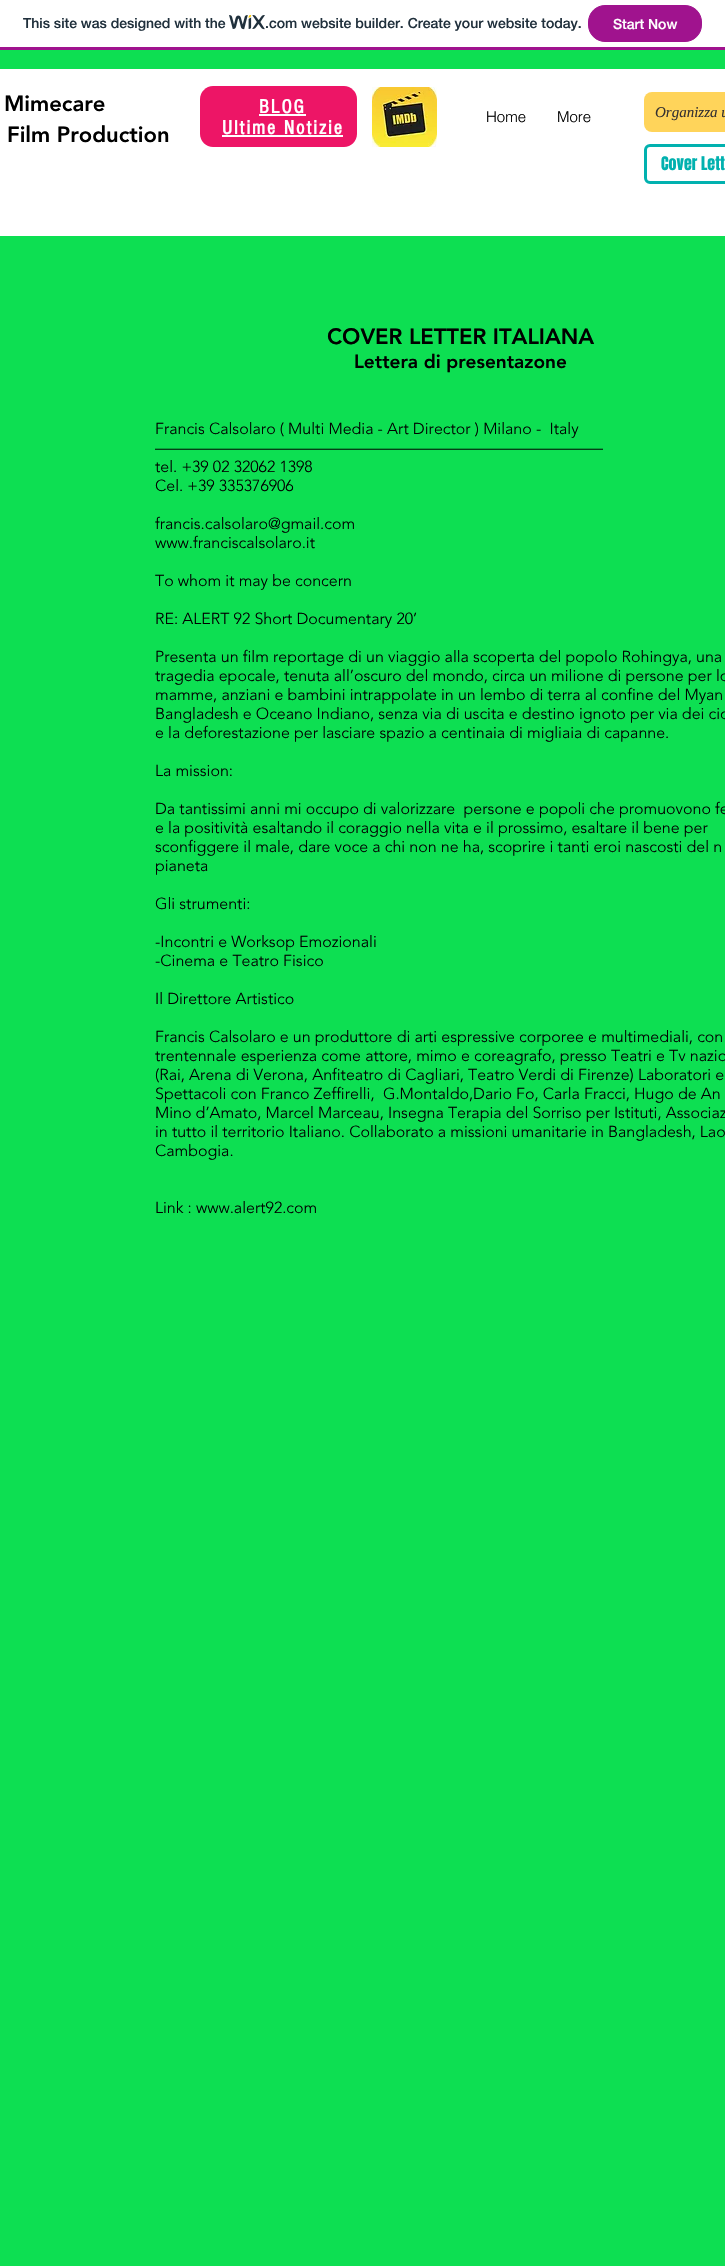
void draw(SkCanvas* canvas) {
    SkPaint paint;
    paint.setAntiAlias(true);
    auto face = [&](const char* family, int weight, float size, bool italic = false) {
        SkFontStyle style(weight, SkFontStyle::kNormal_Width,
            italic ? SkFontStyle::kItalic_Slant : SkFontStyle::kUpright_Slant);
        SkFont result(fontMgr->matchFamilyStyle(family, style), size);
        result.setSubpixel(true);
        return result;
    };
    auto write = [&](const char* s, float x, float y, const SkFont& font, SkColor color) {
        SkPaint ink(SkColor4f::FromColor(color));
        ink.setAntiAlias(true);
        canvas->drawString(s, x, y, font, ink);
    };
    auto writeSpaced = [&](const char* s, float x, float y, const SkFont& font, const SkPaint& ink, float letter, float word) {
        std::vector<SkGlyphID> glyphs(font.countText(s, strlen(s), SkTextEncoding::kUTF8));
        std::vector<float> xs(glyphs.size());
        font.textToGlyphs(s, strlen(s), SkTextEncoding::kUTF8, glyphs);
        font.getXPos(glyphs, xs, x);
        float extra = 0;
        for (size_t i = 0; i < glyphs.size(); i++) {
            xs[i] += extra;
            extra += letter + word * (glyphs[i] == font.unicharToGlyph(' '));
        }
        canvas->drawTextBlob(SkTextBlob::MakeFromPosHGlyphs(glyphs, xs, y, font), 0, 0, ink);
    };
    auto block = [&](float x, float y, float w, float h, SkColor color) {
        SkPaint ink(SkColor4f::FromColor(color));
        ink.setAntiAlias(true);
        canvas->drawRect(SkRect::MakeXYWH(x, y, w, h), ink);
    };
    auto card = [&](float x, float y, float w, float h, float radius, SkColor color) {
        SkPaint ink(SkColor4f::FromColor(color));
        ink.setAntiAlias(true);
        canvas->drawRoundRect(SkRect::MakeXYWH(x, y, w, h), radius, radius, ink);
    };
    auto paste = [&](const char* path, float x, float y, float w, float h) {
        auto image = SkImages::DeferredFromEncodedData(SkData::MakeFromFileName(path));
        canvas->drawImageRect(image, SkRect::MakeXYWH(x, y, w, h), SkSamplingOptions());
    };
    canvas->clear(SK_ColorWHITE);
    block(0, 47, 725, 3, SkColorSetRGB(160, 19, 142));
    auto kFont1 = face("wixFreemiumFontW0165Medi", 500, 14);
    write("This site was designed with the", 23, 28, kFont1, SkColorSetRGB(32, 48, 60));
    paste("pic1.png", 229, 15, 36, 15);
    write(".com website builder. Create your website today.", 265, 28, kFont1, SkColorSetRGB(32, 48, 60));
    paint.setColor(SkColorSetRGB(160, 19, 142));
    canvas->drawRoundRect(SkRect::MakeXYWH(588.5f, 5.5f, 113, 36), 16.5f, 16.5f, paint);
    paint.setStyle(SkPaint::kStroke_Style);
    paint.setStrokeWidth(1);
    canvas->drawRoundRect(SkRect::MakeXYWH(588.5f, 5.5f, 113, 36), 16.5f, 16.5f, paint);
    write("Start Now", 613, 29, kFont1, SK_ColorWHITE);
    block(0, 50, 725, 2216, SkColorSetRGB(13, 223, 82));
    block(0, 69, 725, 167, SK_ColorWHITE);
    auto kFont2 = face("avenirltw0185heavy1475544", 900, 22);
    write("Mimecare", 4, 111, kFont2, SK_ColorBLACK);
    paint.setStyle(SkPaint::kFill_Style);
    paint.setColor(SkColorSetRGB(237, 21, 102));
    canvas->drawPath(SkPathBuilder().moveTo(344, 147).lineTo(213, 147).cubicTo(206, 147, 200, 141, 200, 134).lineTo(200, 99).cubicTo(200, 92, 206, 86, 213, 86).lineTo(344, 86).cubicTo(351, 86, 357, 92, 357, 99).lineTo(357, 134).cubicTo(357, 141, 351, 147, 344, 147).close().detach(), paint);
    paste("pic2.png", 372, 87, 65, 60);
    auto kFont3 = face("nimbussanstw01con", 700, 20);
    paint.setColor(SK_ColorWHITE);
    writeSpaced("BLOG", 259, 113, kFont3, paint, 2, 0);
    block(259, 114, 47, 2, SK_ColorWHITE);
    writeSpaced("Ultime Notizie", 222, 134, kFont3, paint, 2, 0);
    block(222, 135, 121, 2, SK_ColorWHITE);
    auto kFont4 = face("helvetica", 300, 15);
    write("Home", 486, 122, kFont4, SK_ColorBLACK);
    write("More", 557, 122, kFont4, SK_ColorBLACK);
    card(644, 92, 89, 40, 8, SkColorSetRGB(255, 212, 90));
    auto kFont5 = face("Liberation Serif", 400, 15, true);
    write("Organizza u", 655, 117, kFont5, SkColorSetRGB(53, 49, 49));
    write("Film Production", 7, 142, kFont2, SK_ColorBLACK);
    paint.setStyle(SkPaint::kStroke_Style);
    paint.setStrokeWidth(3);
    paint.setColor(SkColorSetRGB(1, 177, 175));
    canvas->drawRoundRect(SkRect::MakeXYWH(645.5f, 145.5f, 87, 37), 4.5f, 4.5f, paint);
    auto kFont6 = face("Anton", 400, 16);
    write("Cover Lett", 661, 170, kFont6, SkColorSetRGB(1, 177, 175));
    write("COVER LETTER ITALIANA", 327, 344, kFont2, SK_ColorBLACK);
    auto kFont7 = face("avenirltw0185heavy1475544", 900, 19);
    write("Lettera di presentazone", 354, 368, kFont7, SK_ColorBLACK);
    auto kFont8 = face("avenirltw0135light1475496", 300, 16);
    write("Francis Calsolaro ( Multi Media - Art Director ) Milano -  Italy", 155, 434, kFont8, SK_ColorBLACK);
    write("————————————————————————————", 155, 453, kFont8, SK_ColorBLACK);
    write("tel. +39 02 32062 1398", 155, 472, kFont8, SK_ColorBLACK);
    write("Cel. +39 335376906", 155, 491, kFont8, SK_ColorBLACK);
    write("francis.calsolaro@gmail.com", 155, 529, kFont8, SK_ColorBLACK);
    write("www.franciscalsolaro.it", 155, 548, kFont8, SK_ColorBLACK);
    write("To whom it may be concern", 155, 586, kFont8, SK_ColorBLACK);
    write("RE: ALERT 92 Short Documentary 20’", 155, 624, kFont8, SK_ColorBLACK);
    write("Presenta un film reportage di un viaggio alla scoperta del popolo Rohingya, una", 155, 662, kFont8, SK_ColorBLACK);
    write("tragedia epocale, tenuta all’oscuro del mondo, circa un milione di persone per lo", 155, 681, kFont8, SK_ColorBLACK);
    write("mamme, anziani e bambini intrappolate in un lembo di terra al confine del Myan", 155, 700, kFont8, SK_ColorBLACK);
    write("Bangladesh e Oceano Indiano, senza via di uscita e destino ignoto per via dei cic", 155, 719, kFont8, SK_ColorBLACK);
    write("e la deforestazione per lasciare spazio a centinaia di migliaia di capanne.", 155, 738, kFont8, SK_ColorBLACK);
    write("La mission:", 155, 776, kFont8, SK_ColorBLACK);
    write("Da tantissimi anni mi occupo di valorizzare  persone e popoli che promuovono fe", 155, 814, kFont8, SK_ColorBLACK);
    write("e la positività esaltando il coraggio nella vita e il prossimo, esaltare il bene per", 155, 833, kFont8, SK_ColorBLACK);
    write("sconfiggere il male, dare voce a chi non ne ha, scoprire i tanti eroi nascosti del n", 155, 852, kFont8, SK_ColorBLACK);
    write("pianeta", 155, 871, kFont8, SK_ColorBLACK);
    write("Gli strumenti:", 155, 909, kFont8, SK_ColorBLACK);
    write("-Incontri e Worksop Emozionali", 155, 947, kFont8, SK_ColorBLACK);
    write("-Cinema e Teatro Fisico", 155, 966, kFont8, SK_ColorBLACK);
    write("Il Direttore Artistico", 155, 1004, kFont8, SK_ColorBLACK);
    write("Francis Calsolaro e un produttore di arti espressive corporee e multimediali, con", 155, 1042, kFont8, SK_ColorBLACK);
    write("trentennale esperienza come attore, mimo e coreagrafo, presso Teatri e Tv nazio", 155, 1061, kFont8, SK_ColorBLACK);
    write("(Rai, Arena di Verona, Anfiteatro di Cagliari, Teatro Verdi di Firenze) Laboratori e", 155, 1080, kFont8, SK_ColorBLACK);
    write("Spettacoli con Franco Zeffirelli,  G.Montaldo,Dario Fo, Carla Fracci, Hugo de An", 155, 1099, kFont8, SK_ColorBLACK);
    write("Mino d’Amato, Marcel Marceau, Insegna Terapia del Sorriso per Istituti, Associaz", 155, 1118, kFont8, SK_ColorBLACK);
    write("in tutto il territorio Italiano. Collaborato a missioni umanitarie in Bangladesh, Lao", 155, 1137, kFont8, SK_ColorBLACK);
    write("Cambogia.", 155, 1156, kFont8, SK_ColorBLACK);
    write("Link : www.alert92.com", 155, 1213, kFont8, SK_ColorBLACK);
}
